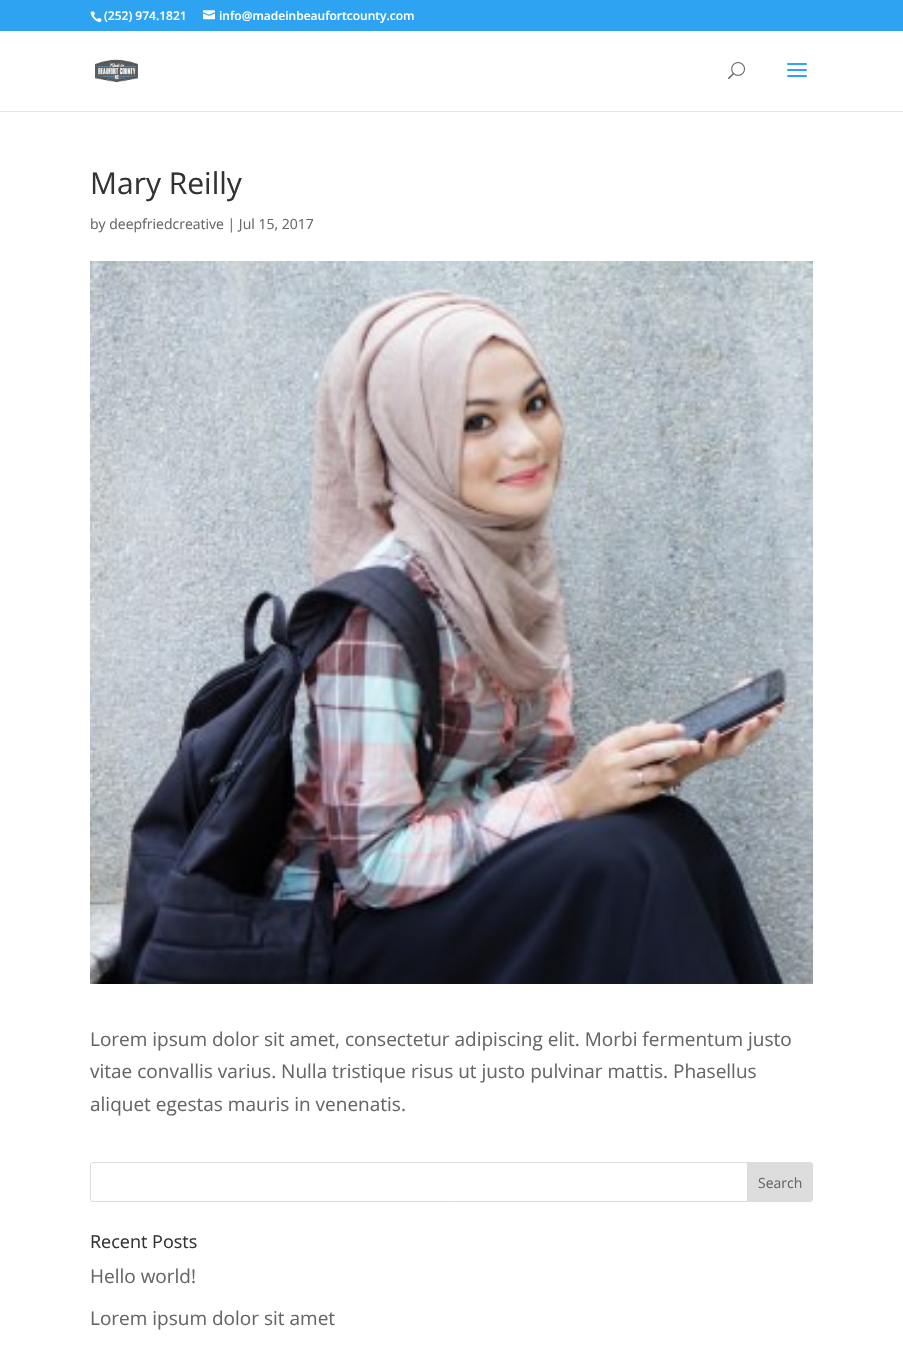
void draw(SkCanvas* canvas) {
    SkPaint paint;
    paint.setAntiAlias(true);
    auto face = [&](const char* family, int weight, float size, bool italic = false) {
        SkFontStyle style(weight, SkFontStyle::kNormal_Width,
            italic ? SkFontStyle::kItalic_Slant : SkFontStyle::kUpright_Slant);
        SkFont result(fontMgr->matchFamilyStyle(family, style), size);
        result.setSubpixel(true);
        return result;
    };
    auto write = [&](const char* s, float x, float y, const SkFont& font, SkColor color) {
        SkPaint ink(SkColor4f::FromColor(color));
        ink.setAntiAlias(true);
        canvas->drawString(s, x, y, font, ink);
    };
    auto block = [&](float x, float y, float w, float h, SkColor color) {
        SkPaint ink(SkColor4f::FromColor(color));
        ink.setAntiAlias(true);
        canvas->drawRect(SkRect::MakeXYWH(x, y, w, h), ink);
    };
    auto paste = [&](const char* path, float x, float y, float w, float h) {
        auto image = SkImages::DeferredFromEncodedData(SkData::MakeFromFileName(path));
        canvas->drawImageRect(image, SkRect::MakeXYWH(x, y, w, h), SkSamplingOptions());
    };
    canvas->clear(SK_ColorWHITE);
    block(0, 0, 903, 31, SkColorSetRGB(46, 163, 242));
    paste("pic1.png", 90, 11, 12, 12);
    auto kFont1 = face("Open Sans", 600, 12);
    write("(252) 974.1821", 104, 20, kFont1, SK_ColorWHITE);
    paste("pic2.png", 203, 10, 12, 10);
    write("info@madeinbeaufortcounty.com", 219, 20, kFont1, SK_ColorWHITE);
    block(0, 111, 903, 1, SkColorSetRGB(230, 230, 230));
    paste("pic3.png", 95, 59, 43, 24);
    paste("pic4.png", 728, 62, 17, 18);
    paste("pic5.png", 787, 63, 20, 14);
    auto kFont2 = face("Open Sans", 400, 30);
    write("Mary Reilly", 90, 194, kFont2, SkColorSetRGB(51, 51, 51));
    auto kFont3 = face("Open Sans", 400, 14);
    write("by deepfriedcreative | Jul 15, 2017", 90, 229, kFont3, SkColorSetRGB(102, 102, 102));
    paste("pic6.png", 90, 261, 723, 723);
    auto kFont4 = face("Open Sans", 400, 19);
    write("Lorem ipsum dolor sit amet, consectetur adipiscing elit. Morbi fermentum justo", 90, 1046, kFont4, SkColorSetRGB(102, 102, 102));
    write("vitae convallis varius. Nulla tristique risus ut justo pulvinar mattis. Phasellus", 90, 1078, kFont4, SkColorSetRGB(102, 102, 102));
    write("aliquet egestas mauris in venenatis.", 90, 1111, kFont4, SkColorSetRGB(102, 102, 102));
    paint.setStyle(SkPaint::kStroke_Style);
    paint.setStrokeWidth(1);
    paint.setColor(SkColorSetRGB(221, 221, 221));
    canvas->drawRoundRect(SkRect::MakeXYWH(90.5f, 1162.5f, 722, 39), 2.5f, 2.5f, paint);
    paint.setStyle(SkPaint::kFill_Style);
    canvas->drawPath(SkPathBuilder().moveTo(747.5f, 1162.5f).lineTo(810, 1162.5f).cubicTo(811.5f, 1162.5f, 812.5f, 1163.5f, 812.5f, 1165).lineTo(812.5f, 1199).cubicTo(812.5f, 1200.5f, 811.5f, 1201.5f, 810, 1201.5f).lineTo(747.5f, 1201.5f).close().detach(), paint);
    paint.setStyle(SkPaint::kStroke_Style);
    canvas->drawPath(SkPathBuilder().moveTo(747.5f, 1162.5f).lineTo(810, 1162.5f).cubicTo(811.5f, 1162.5f, 812.5f, 1163.5f, 812.5f, 1165).lineTo(812.5f, 1199).cubicTo(812.5f, 1200.5f, 811.5f, 1201.5f, 810, 1201.5f).lineTo(747.5f, 1201.5f).close().detach(), paint);
    write("Search", 758, 1188, kFont3, SkColorSetRGB(102, 102, 102));
    auto kFont5 = face("Open Sans", 400, 18);
    write("Recent Posts", 90, 1248, kFont5, SkColorSetRGB(51, 51, 51));
    write("Hello world!", 90, 1283, kFont4, SkColorSetRGB(102, 102, 102));
    write("Lorem ipsum dolor sit amet", 90, 1325, kFont4, SkColorSetRGB(102, 102, 102));
}
